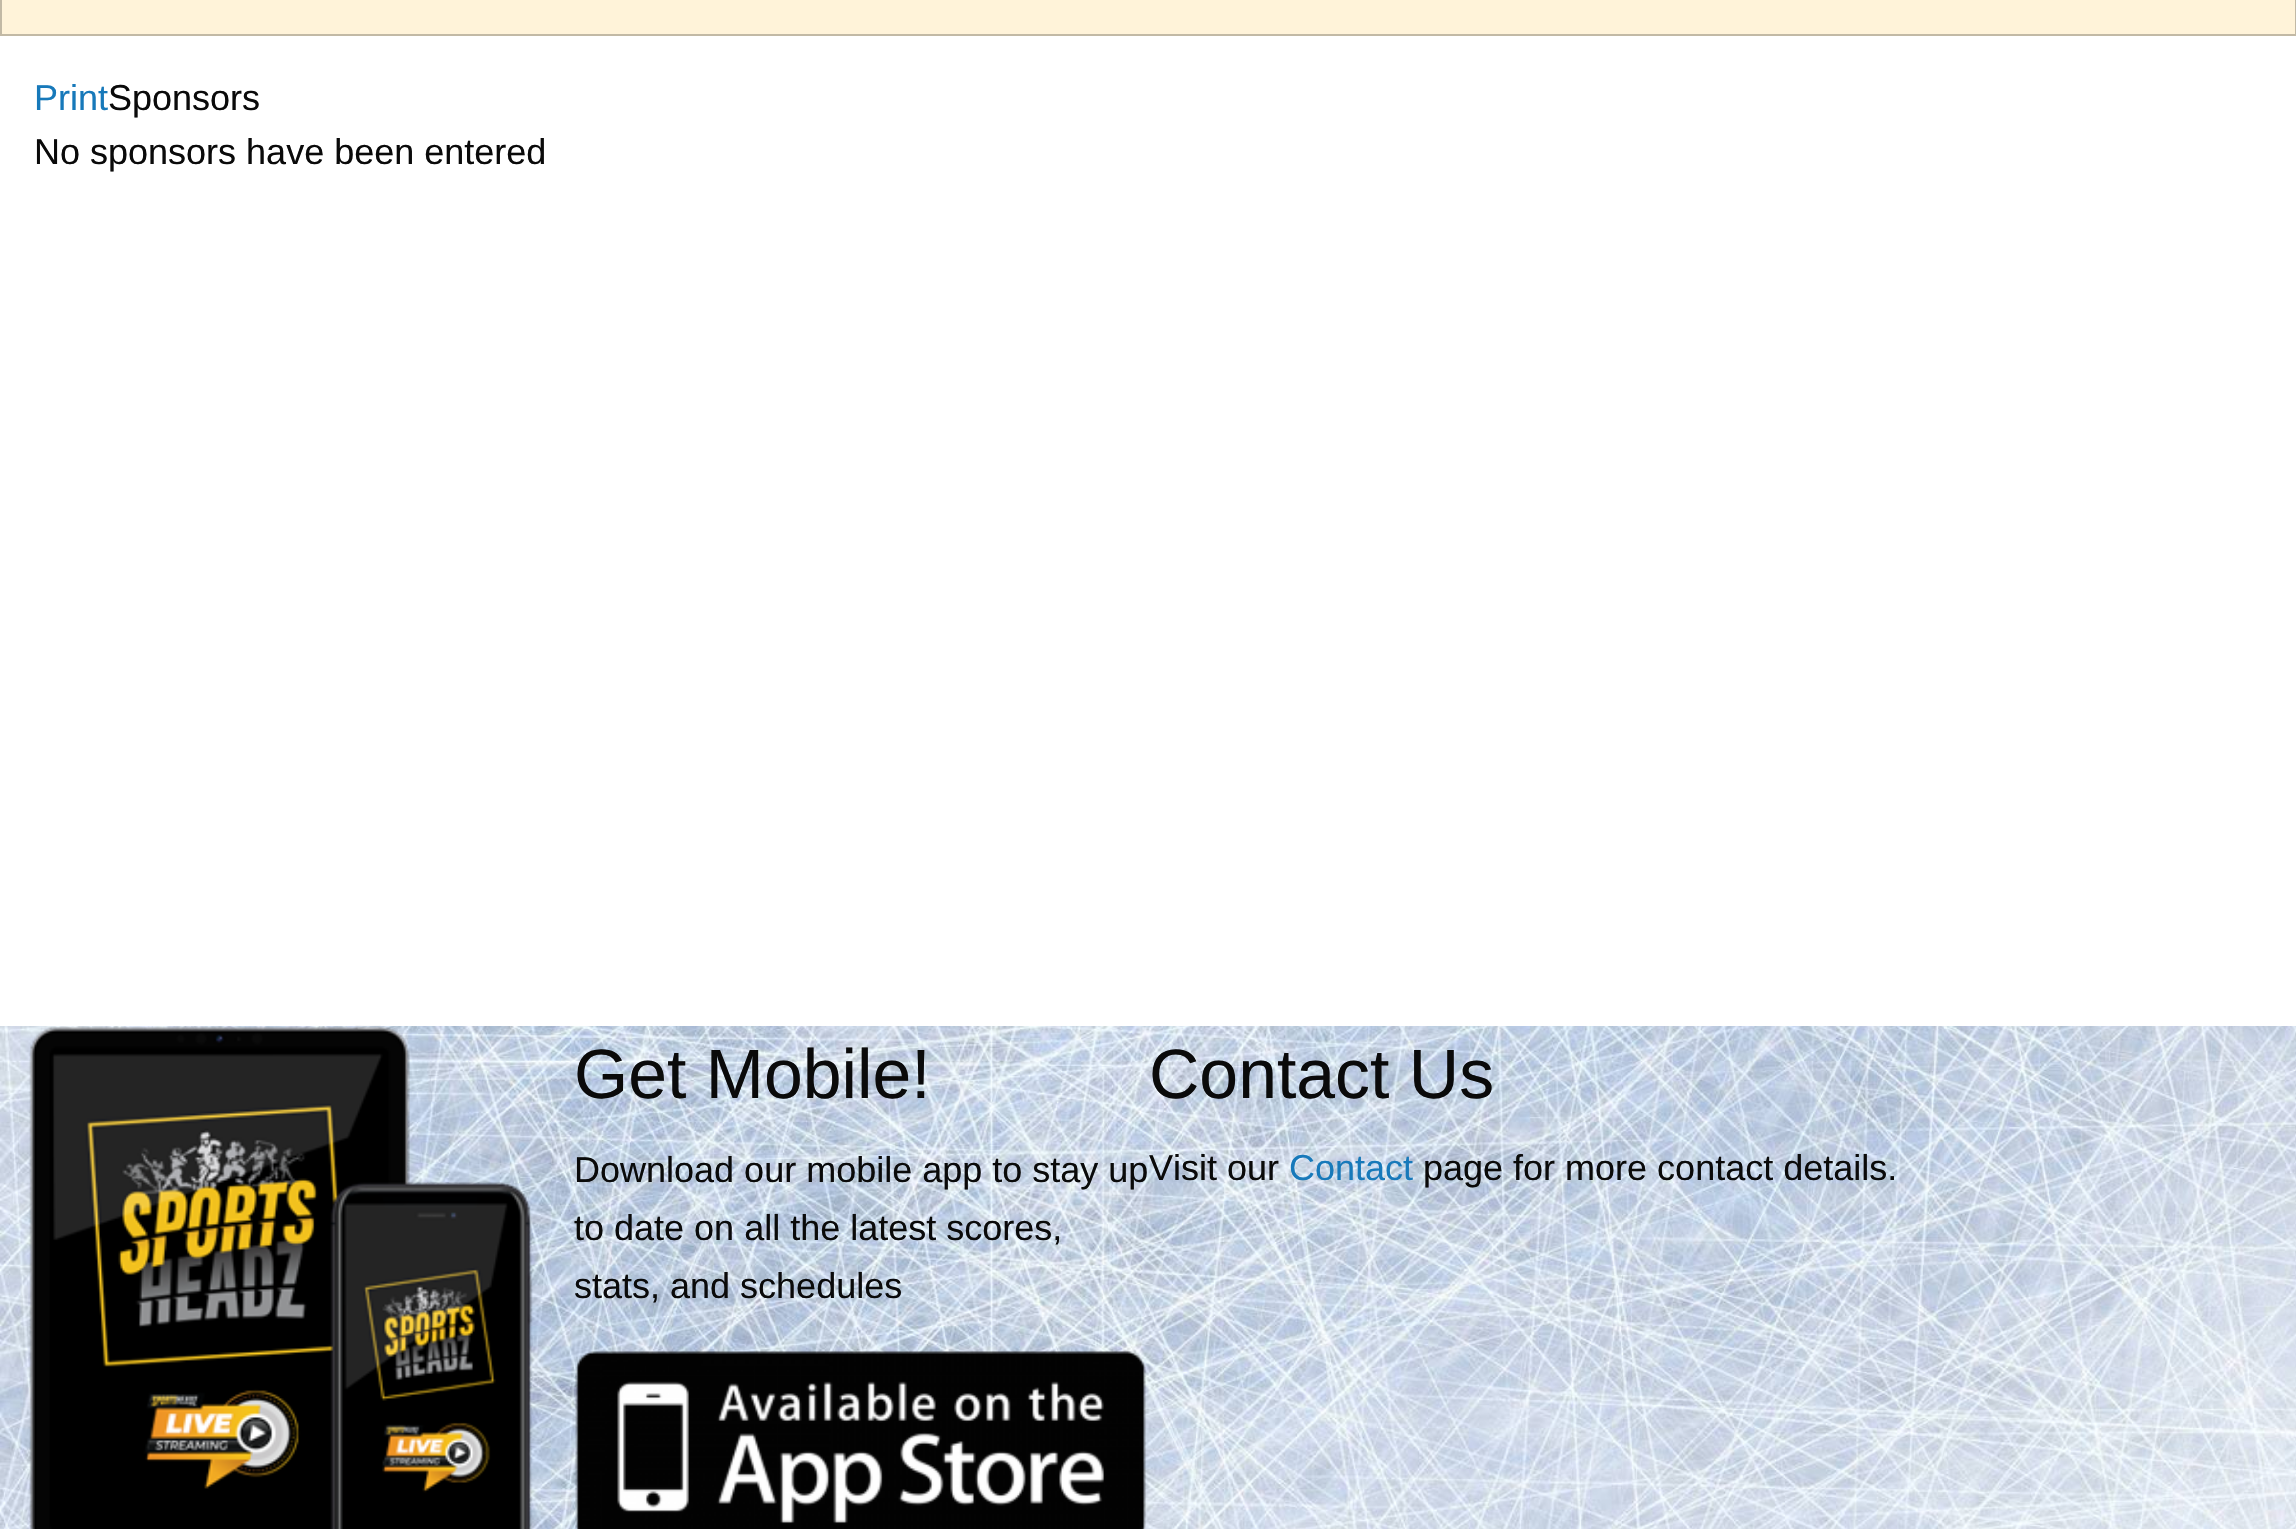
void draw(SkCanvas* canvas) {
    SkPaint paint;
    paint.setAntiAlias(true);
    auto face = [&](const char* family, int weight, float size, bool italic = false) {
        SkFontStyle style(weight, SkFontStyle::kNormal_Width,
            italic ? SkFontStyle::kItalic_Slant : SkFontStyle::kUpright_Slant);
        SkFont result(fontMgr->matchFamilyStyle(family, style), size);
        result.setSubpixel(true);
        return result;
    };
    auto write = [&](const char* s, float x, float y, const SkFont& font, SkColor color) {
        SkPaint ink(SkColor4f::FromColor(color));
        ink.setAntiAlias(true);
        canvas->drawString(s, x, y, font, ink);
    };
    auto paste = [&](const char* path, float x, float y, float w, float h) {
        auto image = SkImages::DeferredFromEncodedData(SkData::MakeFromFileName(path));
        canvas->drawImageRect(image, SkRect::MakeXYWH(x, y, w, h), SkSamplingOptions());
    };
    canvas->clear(SK_ColorWHITE);
    paste("pic1.png", 0, 1026, 2296, 503);
    paint.setColor(SkColorSetRGB(255, 243, 217));
    canvas->drawRect(SkRect::MakeXYWH(1, -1, 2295, 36), paint);
    paint.setStyle(SkPaint::kStroke_Style);
    paint.setStrokeWidth(2);
    paint.setColor(SkColorSetRGB(194, 185, 165));
    canvas->drawRect(SkRect::MakeXYWH(1, -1, 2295, 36), paint);
    auto kFont1 = face("Liberation Sans", 400, 36);
    write("Print", 34, 110, kFont1, SkColorSetRGB(23, 121, 186));
    write("Sponsors", 108, 110, kFont1, SkColorSetRGB(10, 10, 10));
    write("No sponsors have been entered", 34, 164, kFont1, SkColorSetRGB(10, 10, 10));
    paste("pic2.png", 29, 1025, 504, 504);
    auto kFont2 = face("Liberation Sans", 400, 69.75f);
    write("Get Mobile!", 574, 1098, kFont2, SkColorSetRGB(10, 10, 10));
    write("Download our mobile app to stay up", 574, 1182, kFont1, SkColorSetRGB(10, 10, 10));
    write("to date on all the latest scores,", 574, 1240, kFont1, SkColorSetRGB(10, 10, 10));
    write("stats, and schedules", 574, 1298, kFont1, SkColorSetRGB(10, 10, 10));
    paste("pic3.png", 575, 1351, 571, 178);
    write("Contact Us", 1149, 1098, kFont2, SkColorSetRGB(10, 10, 10));
    write("Visit our", 1149, 1180, kFont1, SkColorSetRGB(10, 10, 10));
    write("Contact", 1289, 1180, kFont1, SkColorSetRGB(23, 121, 186));
    write("page for more contact details.", 1423, 1180, kFont1, SkColorSetRGB(10, 10, 10));
}
